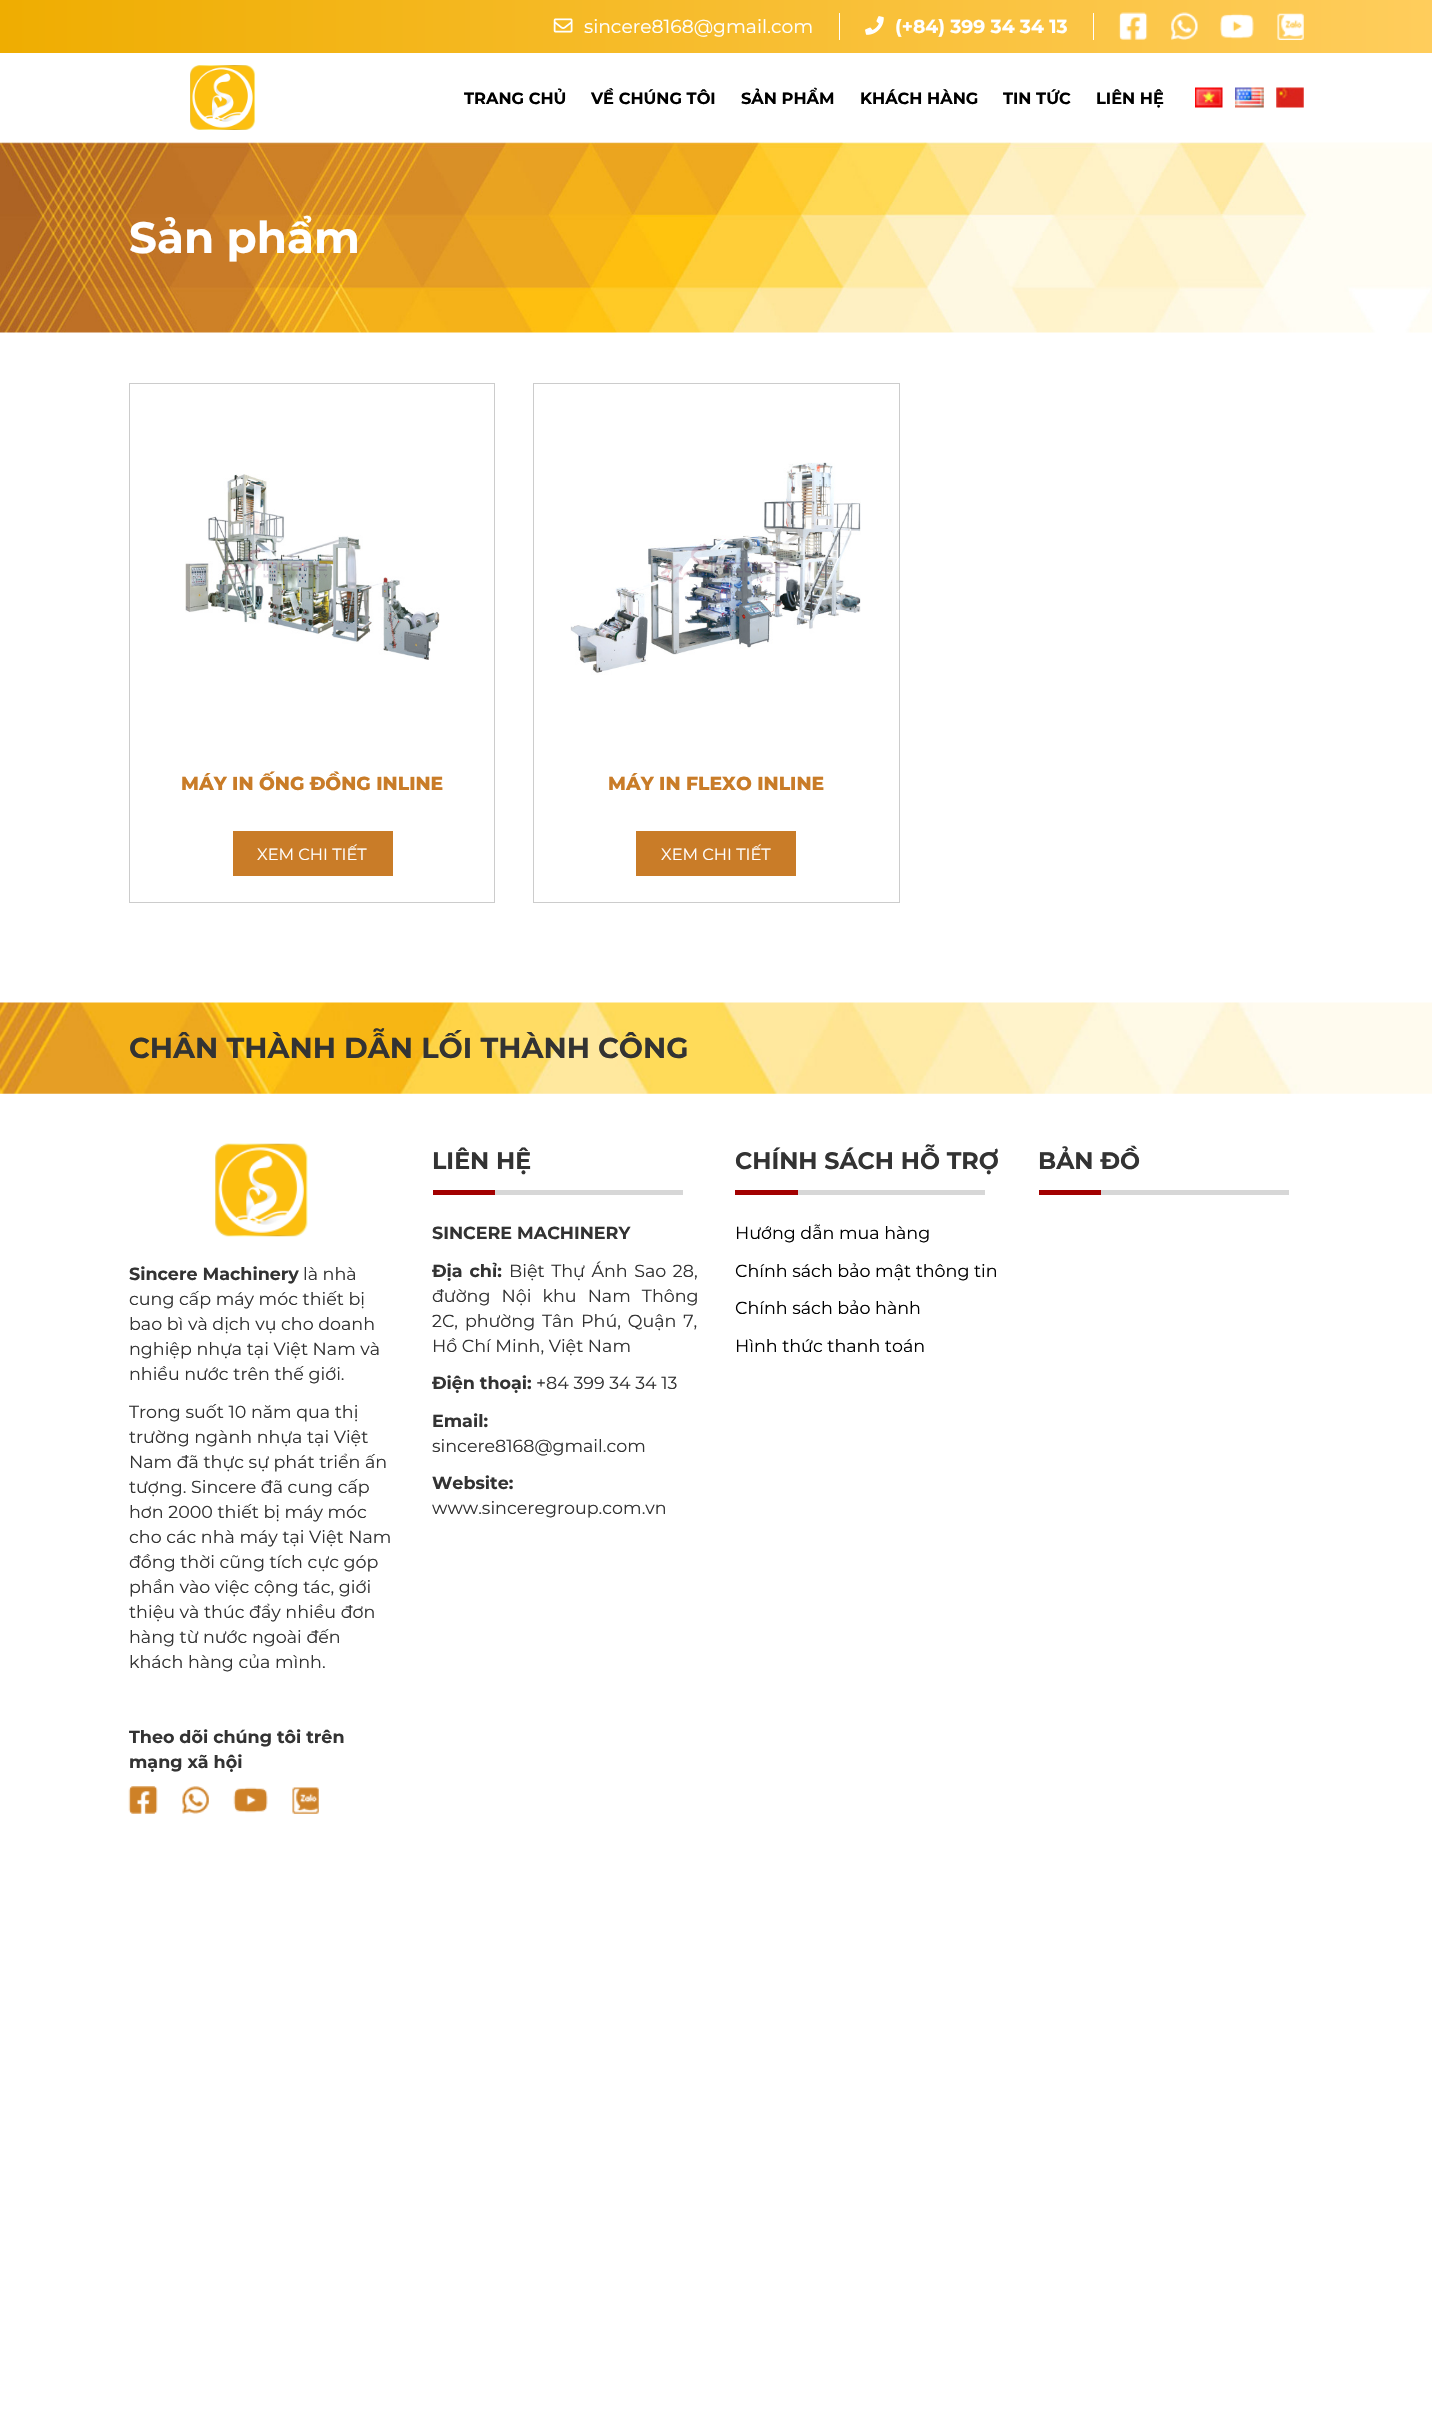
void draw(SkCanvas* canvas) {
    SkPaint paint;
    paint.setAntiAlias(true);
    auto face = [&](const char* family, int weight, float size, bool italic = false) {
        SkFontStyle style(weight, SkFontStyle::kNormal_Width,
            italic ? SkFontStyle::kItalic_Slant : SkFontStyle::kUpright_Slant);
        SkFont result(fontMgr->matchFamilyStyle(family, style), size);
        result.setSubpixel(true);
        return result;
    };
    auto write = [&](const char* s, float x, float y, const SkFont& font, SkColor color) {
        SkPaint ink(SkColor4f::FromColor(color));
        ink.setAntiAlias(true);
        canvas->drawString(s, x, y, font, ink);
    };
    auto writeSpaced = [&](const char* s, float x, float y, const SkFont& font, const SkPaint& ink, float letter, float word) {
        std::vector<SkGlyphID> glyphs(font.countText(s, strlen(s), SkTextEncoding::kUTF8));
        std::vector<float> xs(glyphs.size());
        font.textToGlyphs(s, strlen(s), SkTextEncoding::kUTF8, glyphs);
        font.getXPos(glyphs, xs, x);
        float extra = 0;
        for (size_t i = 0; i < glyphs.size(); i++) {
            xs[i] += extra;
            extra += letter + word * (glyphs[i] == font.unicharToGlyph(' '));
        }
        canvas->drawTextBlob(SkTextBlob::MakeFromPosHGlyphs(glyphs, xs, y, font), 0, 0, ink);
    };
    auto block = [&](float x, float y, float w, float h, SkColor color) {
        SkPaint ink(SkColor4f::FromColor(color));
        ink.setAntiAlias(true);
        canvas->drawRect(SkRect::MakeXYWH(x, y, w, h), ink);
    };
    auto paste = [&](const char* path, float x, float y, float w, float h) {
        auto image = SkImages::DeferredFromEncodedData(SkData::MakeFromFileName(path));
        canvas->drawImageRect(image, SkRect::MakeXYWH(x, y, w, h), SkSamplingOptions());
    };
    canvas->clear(SK_ColorWHITE);
    {
        const SkColor colors[] = {SkColorSetRGB(239, 173, 1), SkColorSetRGB(255, 205, 92)};
        const float stops[] = {0, 1};
        const SkPoint ends[] = {{0, 26}, {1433, 26}};
        paint.setShader(SkGradientShader::MakeLinear(ends, colors, stops, 2, SkTileMode::kClamp));
        paint.setAlpha(255);
    }
    canvas->drawRect(SkRect::MakeXYWH(0, 0, 1432, 53), paint);
    block(839, 13, 1, 27, SK_ColorWHITE);
    paste("pic1.png", 553, 18, 20, 15);
    auto kFont1 = face("Montserrat", 400, 18.75f);
    write("sincere8168@gmail.com", 584, 33, kFont1, SK_ColorWHITE);
    block(1093, 13, 1, 27, SK_ColorWHITE);
    paste("pic2.png", 865, 16, 19, 19);
    auto kFont2 = face("Montserrat", 700, 18.75f);
    write("(+84) 399 34 34 13", 895, 33, kFont2, SK_ColorWHITE);
    paste("pic3.png", 1118, 12, 30, 28);
    paste("pic4.png", 1171, 12, 27, 28);
    paste("pic5.png", 1220, 13, 34, 26);
    paste("pic6.png", 1277, 13, 27, 27);
    paste("pic7.png", 190, 65, 66, 65);
    auto kFont3 = face("Montserrat", 700, 16.25f);
    write("TRANG CHỦ", 464, 104, kFont3, SK_ColorBLACK);
    write("VỀ CHÚNG TÔI", 591, 104, kFont3, SK_ColorBLACK);
    write("SẢN PHẨM", 741, 104, kFont3, SK_ColorBLACK);
    write("KHÁCH HÀNG", 860, 104, kFont3, SK_ColorBLACK);
    write("TIN TỨC", 1003, 104, kFont3, SK_ColorBLACK);
    write("LIÊN HỆ", 1096, 104, kFont3, SK_ColorBLACK);
    paste("pic8.png", 1195, 87, 28, 21);
    paste("pic9.png", 1235, 87, 29, 21);
    paste("pic10.png", 1276, 87, 28, 21);
    paste("pic11.png", 0, 142, 1432, 191);
    auto kFont4 = face("Montserrat", 700, 43.75f);
    write("Sản phẩm", 129, 253, kFont4, SK_ColorWHITE);
    paint.setStyle(SkPaint::kStroke_Style);
    paint.setStrokeWidth(1);
    paint.setShader(nullptr);
    paint.setColor(SkColorSetRGB(204, 204, 204));
    canvas->drawRect(SkRect::MakeXYWH(129.5f, 383.5f, 365, 519), paint);
    paste("pic12.png", 185, 474, 255, 186);
    auto kFont5 = face("Montserrat", 800, 18.75f);
    write("MÁY IN ỐNG ĐỒNG INLINE", 181, 790, kFont5, SkColorSetRGB(201, 124, 40));
    block(233, 831, 160, 45, SkColorSetRGB(201, 124, 40));
    auto kFont6 = face("Montserrat", 400, 16.25f);
    write("XEM CHI TIẾT", 257, 860, kFont6, SK_ColorWHITE);
    canvas->drawRect(SkRect::MakeXYWH(533.5f, 383.5f, 366, 519), paint);
    paste("pic13.png", 570, 462, 291, 213);
    write("MÁY IN FLEXO INLINE", 608, 790, kFont5, SkColorSetRGB(201, 124, 40));
    block(636, 831, 160, 45, SkColorSetRGB(201, 124, 40));
    write("XEM CHI TIẾT", 661, 860, kFont6, SK_ColorWHITE);
    paste("pic14.png", 0, 1002, 1432, 92);
    auto kFont7 = face("Montserrat", 700, 28.75f);
    write("CHÂN THÀNH DẪN LỐI THÀNH CÔNG", 129, 1058, kFont7, SkColorSetRGB(51, 51, 51));
    paste("pic15.png", 215, 1143, 93, 94);
    auto kFont8 = face("Montserrat", 700, 17.5f);
    write("Sincere Machinery", 129, 1280, kFont8, SkColorSetRGB(51, 51, 51));
    auto kFont9 = face("Montserrat", 400, 17.5f);
    write("là nhà", 303, 1280, kFont9, SkColorSetRGB(51, 51, 51));
    write("cung cấp máy móc thiết bị", 129, 1305, kFont9, SkColorSetRGB(51, 51, 51));
    write("bao bì và dịch vụ cho doanh", 129, 1330, kFont9, SkColorSetRGB(51, 51, 51));
    write("nghiệp nhựa tại Việt Nam và", 129, 1355, kFont9, SkColorSetRGB(51, 51, 51));
    write("nhiều nước trên thế giới.", 129, 1380, kFont9, SkColorSetRGB(51, 51, 51));
    write("Trong suốt 10 năm qua thị", 129, 1418, kFont9, SkColorSetRGB(51, 51, 51));
    write("trường ngành nhựa tại Việt", 129, 1443, kFont9, SkColorSetRGB(51, 51, 51));
    write("Nam đã thực sự phát triển ấn", 129, 1468, kFont9, SkColorSetRGB(51, 51, 51));
    write("tượng. Sincere đã cung cấp", 129, 1493, kFont9, SkColorSetRGB(51, 51, 51));
    write("hơn 2000 thiết bị máy móc", 129, 1518, kFont9, SkColorSetRGB(51, 51, 51));
    write("cho các nhà máy tại Việt Nam", 129, 1543, kFont9, SkColorSetRGB(51, 51, 51));
    write("đồng thời cũng tích cực góp", 129, 1568, kFont9, SkColorSetRGB(51, 51, 51));
    write("phần vào việc cộng tác, giới", 129, 1593, kFont9, SkColorSetRGB(51, 51, 51));
    write("thiệu và thúc đẩy nhiều đơn", 129, 1618, kFont9, SkColorSetRGB(51, 51, 51));
    write("hàng từ nước ngoài đến", 129, 1643, kFont9, SkColorSetRGB(51, 51, 51));
    write("khách hàng của mình.", 129, 1668, kFont9, SkColorSetRGB(51, 51, 51));
    write("Theo dõi chúng tôi trên", 129, 1743, kFont8, SkColorSetRGB(51, 51, 51));
    write("mạng xã hội", 129, 1768, kFont8, SkColorSetRGB(51, 51, 51));
    paste("pic16.png", 128, 1786, 30, 28);
    paste("pic17.png", 182, 1786, 27, 28);
    paste("pic18.png", 233, 1787, 35, 26);
    paste("pic19.png", 292, 1787, 27, 27);
    auto kFont10 = face("Montserrat", 700, 23.75f);
    write("LIÊN HỆ", 432, 1169, kFont10, SkColorSetRGB(51, 51, 51));
    block(433, 1190, 62, 5, SkColorSetRGB(162, 0, 0));
    block(495, 1190, 188, 5, SkColorSetRGB(215, 215, 215));
    write("SINCERE MACHINERY", 432, 1239, kFont8, SkColorSetRGB(51, 51, 51));
    paint.setStyle(SkPaint::kFill_Style);
    paint.setColor(SkColorSetRGB(51, 51, 51));
    writeSpaced("Địa chỉ:", 432, 1277, kFont8, paint, 0, 2);
    writeSpaced("Biệt Thự Ánh Sao 28,", 509, 1277, kFont9, paint, 0, 2);
    writeSpaced("đường Nội khu Nam Thông", 432, 1302, kFont9, paint, 0, 6.5f);
    writeSpaced("2C, phường Tân Phú, Quận 7,", 432, 1327, kFont9, paint, 0, 2.25f);
    write("Hồ Chí Minh, Việt Nam", 432, 1352, kFont9, SkColorSetRGB(51, 51, 51));
    write("Điện thoại:", 432, 1389, kFont8, SkColorSetRGB(51, 51, 51));
    write("+84 399 34 34 13", 536, 1389, kFont9, SkColorSetRGB(51, 51, 51));
    write("Email:", 432, 1427, kFont8, SkColorSetRGB(51, 51, 51));
    write("sincere8168@gmail.com", 432, 1452, kFont9, SkColorSetRGB(51, 51, 51));
    write("Website:", 432, 1489, kFont8, SkColorSetRGB(51, 51, 51));
    write("www.sinceregroup.com.vn", 432, 1514, kFont9, SkColorSetRGB(51, 51, 51));
    write("CHÍNH SÁCH HỖ TRỢ", 735, 1169, kFont10, SkColorSetRGB(51, 51, 51));
    block(735, 1190, 63, 5, SkColorSetRGB(162, 0, 0));
    block(798, 1190, 187, 5, SkColorSetRGB(215, 215, 215));
    write("Hướng dẫn mua hàng", 735, 1239, kFont9, SK_ColorBLACK);
    write("Chính sách bảo mật thông tin", 735, 1277, kFont9, SK_ColorBLACK);
    write("Chính sách bảo hành", 735, 1314, kFont9, SK_ColorBLACK);
    write("Hình thức thanh toán", 735, 1352, kFont9, SK_ColorBLACK);
    write("BẢN ĐỒ", 1038, 1169, kFont10, SkColorSetRGB(51, 51, 51));
    block(1039, 1190, 62, 5, SkColorSetRGB(162, 0, 0));
    block(1101, 1190, 188, 5, SkColorSetRGB(215, 215, 215));
}
